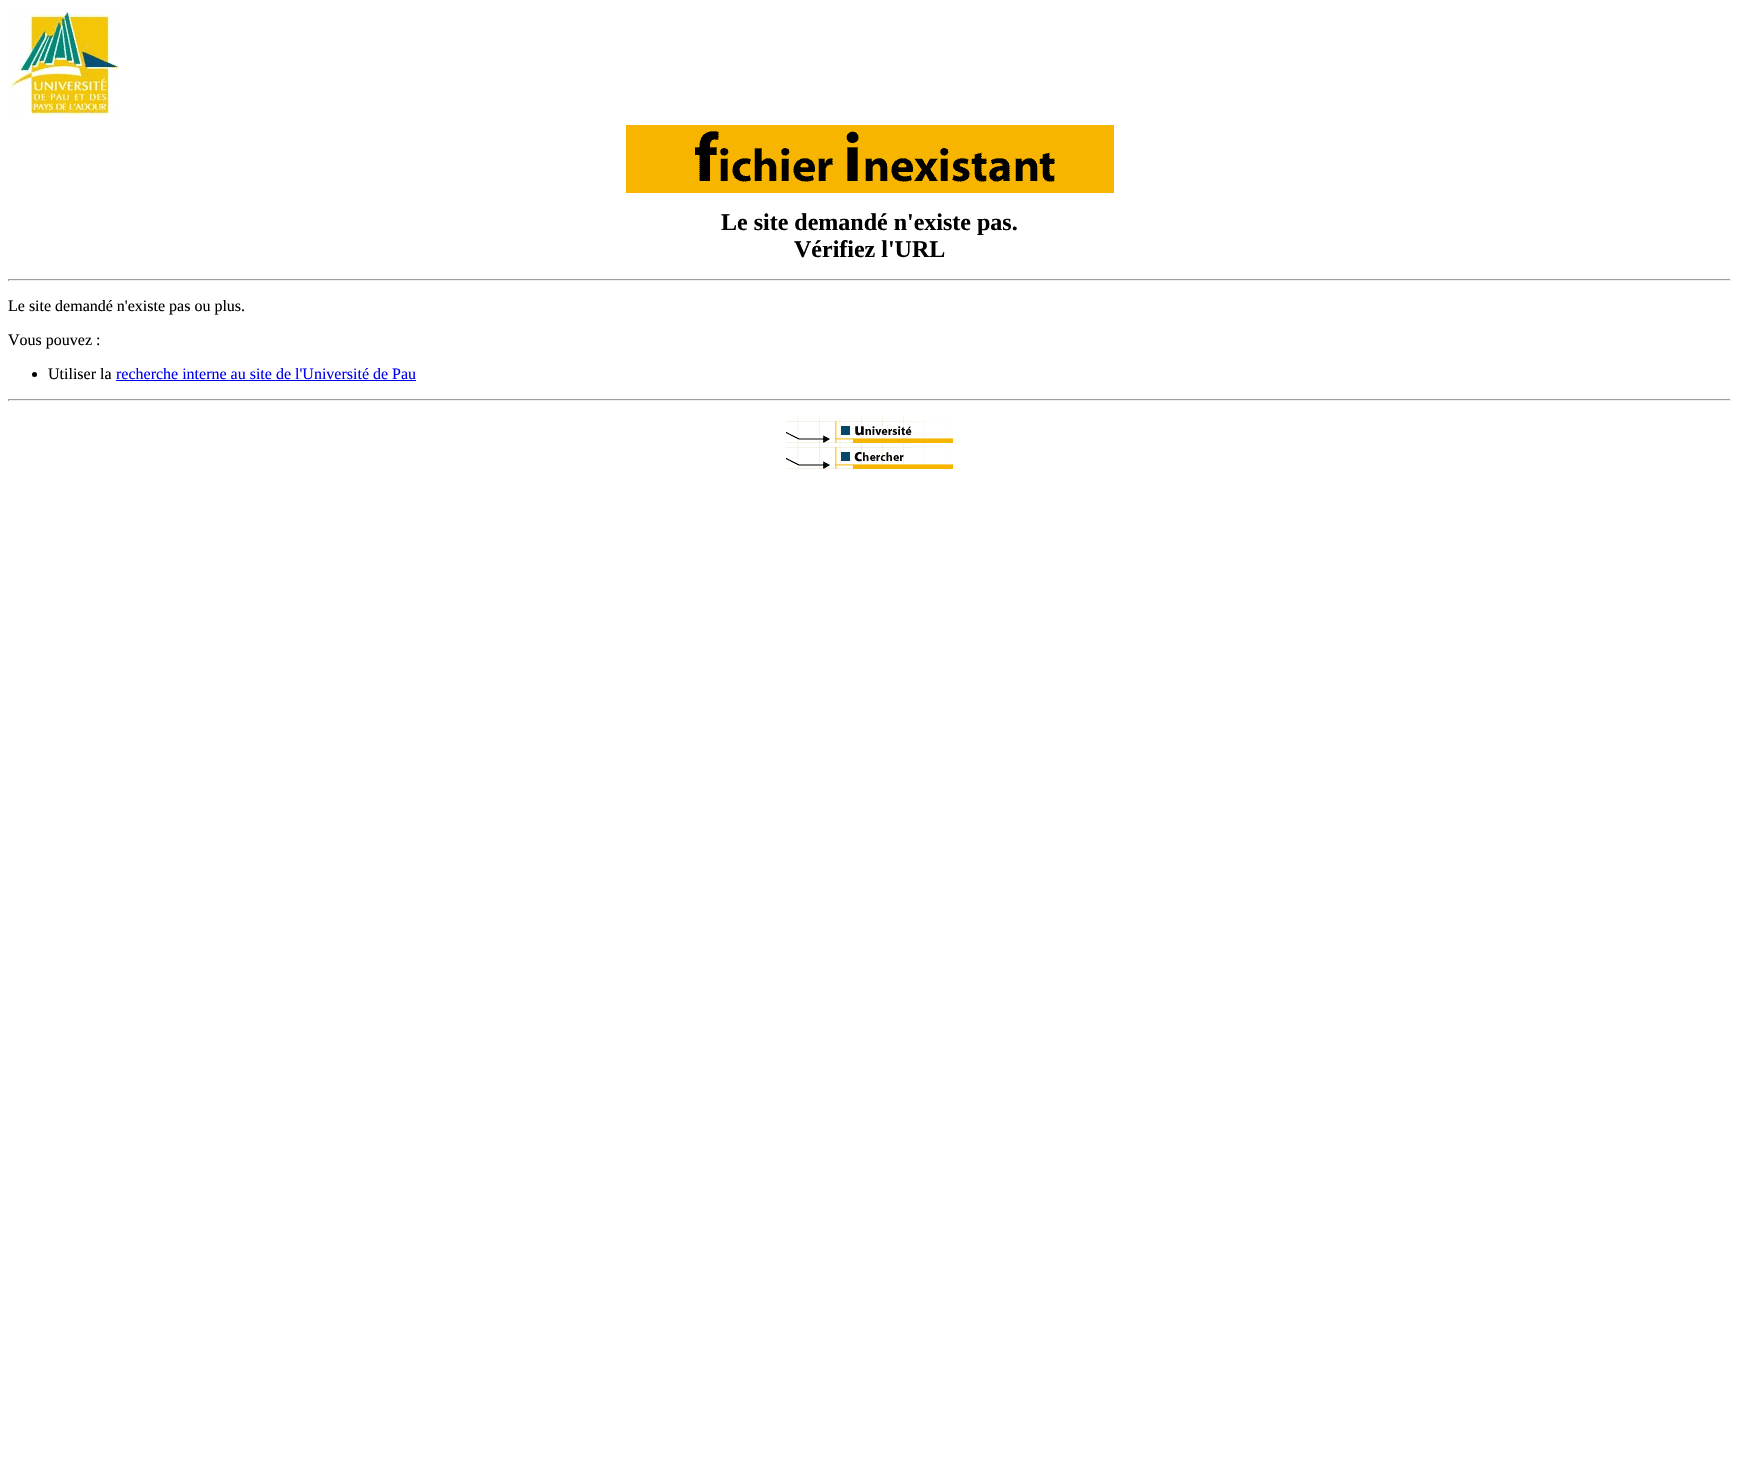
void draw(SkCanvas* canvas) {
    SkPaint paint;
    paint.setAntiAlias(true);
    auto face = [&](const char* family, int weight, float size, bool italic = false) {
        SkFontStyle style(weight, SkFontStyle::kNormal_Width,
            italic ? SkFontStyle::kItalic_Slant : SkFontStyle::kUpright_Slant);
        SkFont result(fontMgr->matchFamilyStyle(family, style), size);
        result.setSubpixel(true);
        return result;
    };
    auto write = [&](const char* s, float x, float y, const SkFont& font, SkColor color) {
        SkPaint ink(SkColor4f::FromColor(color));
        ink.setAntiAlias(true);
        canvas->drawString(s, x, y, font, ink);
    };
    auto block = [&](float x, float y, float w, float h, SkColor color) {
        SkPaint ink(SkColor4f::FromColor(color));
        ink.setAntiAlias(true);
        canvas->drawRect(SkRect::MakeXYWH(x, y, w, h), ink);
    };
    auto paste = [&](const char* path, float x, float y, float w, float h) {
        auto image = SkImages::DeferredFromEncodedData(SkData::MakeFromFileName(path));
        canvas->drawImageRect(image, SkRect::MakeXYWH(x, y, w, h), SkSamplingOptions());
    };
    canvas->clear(SK_ColorWHITE);
    paste("pic1.png", 8, 8, 111, 107);
    paste("pic2.png", 626, 125, 488, 68);
    auto kFont1 = face("Liberation Serif", 700, 24);
    write("Le site demandé n'existe pas.", 721, 230, kFont1, SK_ColorBLACK);
    write("Vérifiez l'URL", 794, 257, kFont1, SK_ColorBLACK);
    block(8, 279, 1723, 1, SkColorSetRGB(159, 159, 159));
    block(1730, 279, 1, 2, SkColorSetRGB(238, 238, 238));
    block(8, 280, 1723, 1, SkColorSetRGB(238, 238, 238));
    block(8, 279, 1, 2, SkColorSetRGB(159, 159, 159));
    auto kFont2 = face("Liberation Serif", 400, 16);
    write("Le site demandé n'existe pas ou plus.", 8, 311, kFont2, SK_ColorBLACK);
    write("Vous pouvez :", 8, 345, kFont2, SK_ColorBLACK);
    paint.setColor(SK_ColorBLACK);
    canvas->drawCircle(34.5f, 374.5f, 2.5f, paint);
    write("Utiliser la", 48, 379, kFont2, SK_ColorBLACK);
    write("recherche interne au site de l'Université de Pau", 116, 379, kFont2, SkColorSetRGB(0, 0, 238));
    block(116, 380, 300, 1, SkColorSetRGB(0, 0, 238));
    block(8, 399, 1723, 1, SkColorSetRGB(159, 159, 159));
    block(1730, 399, 1, 2, SkColorSetRGB(238, 238, 238));
    block(8, 400, 1723, 1, SkColorSetRGB(238, 238, 238));
    block(8, 399, 1, 2, SkColorSetRGB(159, 159, 159));
    paste("pic3.png", 786, 417, 167, 26);
    paste("pic4.png", 786, 443, 167, 26);
}
